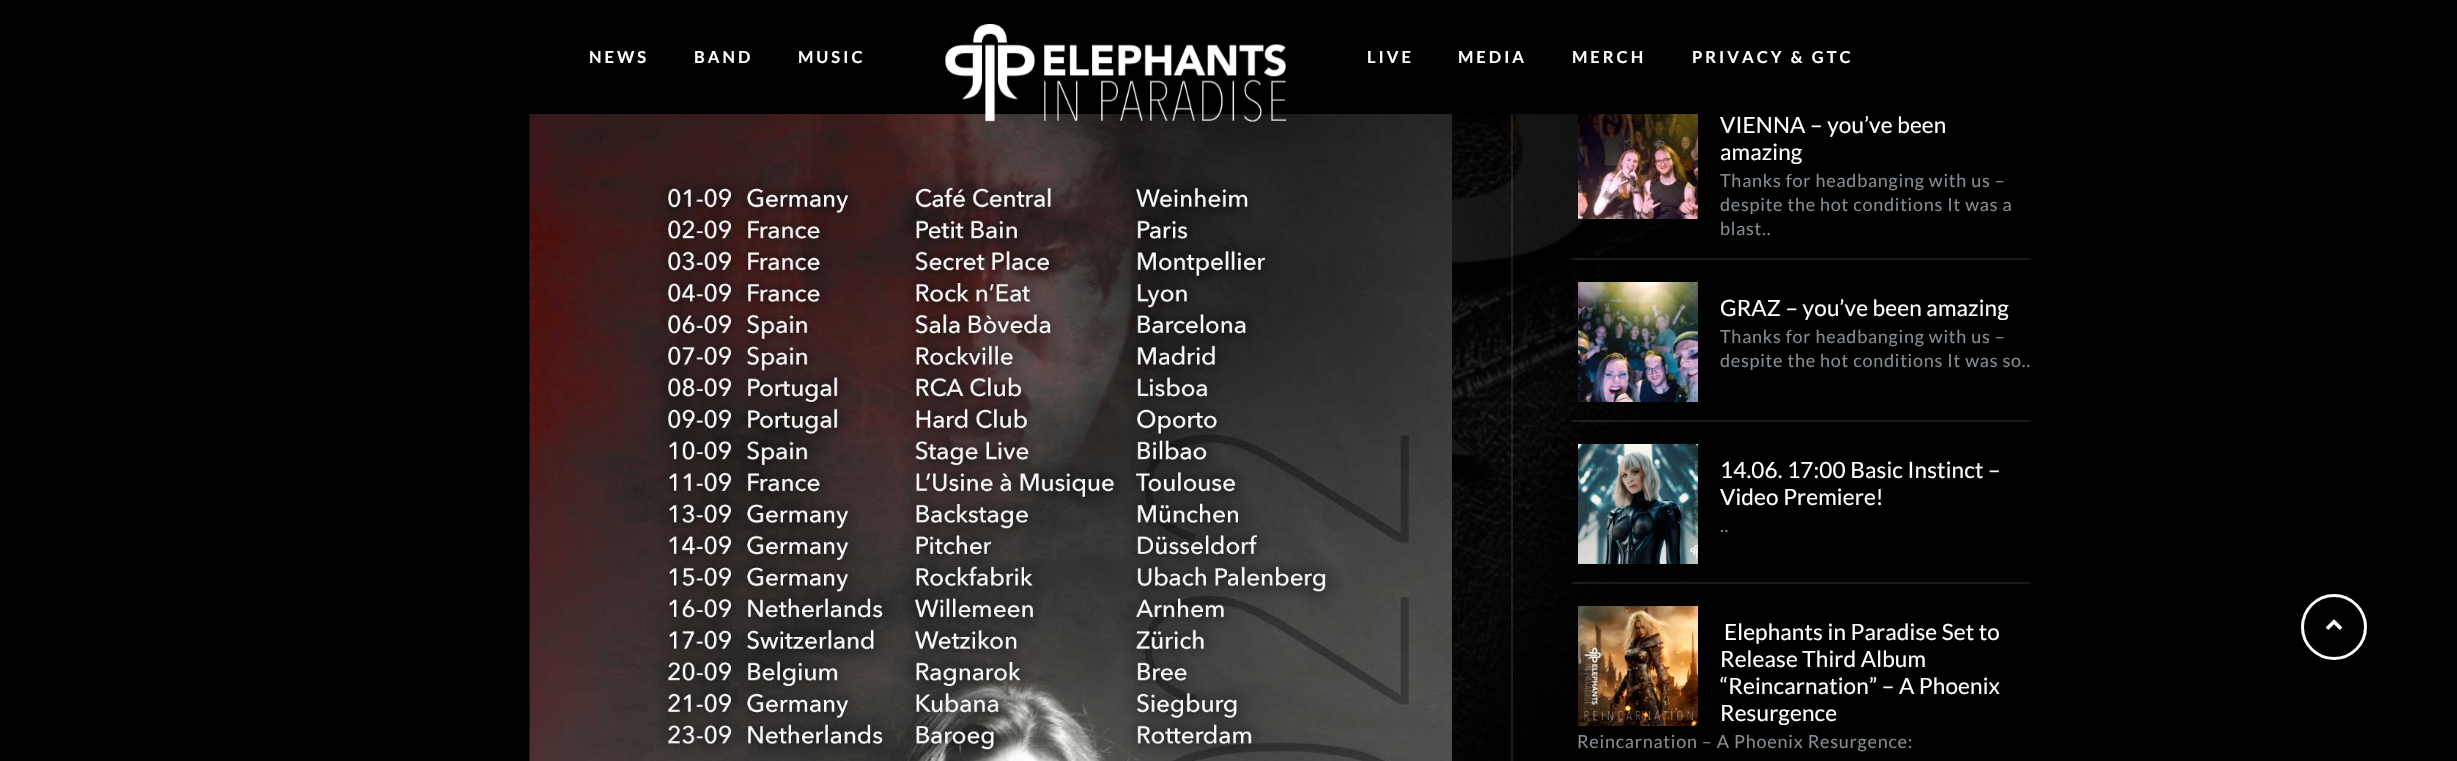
void draw(SkCanvas* canvas) {
    SkPaint paint;
    paint.setAntiAlias(true);
    auto face = [&](const char* family, int weight, float size, bool italic = false) {
        SkFontStyle style(weight, SkFontStyle::kNormal_Width,
            italic ? SkFontStyle::kItalic_Slant : SkFontStyle::kUpright_Slant);
        SkFont result(fontMgr->matchFamilyStyle(family, style), size);
        result.setSubpixel(true);
        return result;
    };
    auto writeSpaced = [&](const char* s, float x, float y, const SkFont& font, const SkPaint& ink, float letter, float word) {
        std::vector<SkGlyphID> glyphs(font.countText(s, strlen(s), SkTextEncoding::kUTF8));
        std::vector<float> xs(glyphs.size());
        font.textToGlyphs(s, strlen(s), SkTextEncoding::kUTF8, glyphs);
        font.getXPos(glyphs, xs, x);
        float extra = 0;
        for (size_t i = 0; i < glyphs.size(); i++) {
            xs[i] += extra;
            extra += letter + word * (glyphs[i] == font.unicharToGlyph(' '));
        }
        canvas->drawTextBlob(SkTextBlob::MakeFromPosHGlyphs(glyphs, xs, y, font), 0, 0, ink);
    };
    auto block = [&](float x, float y, float w, float h, SkColor color) {
        SkPaint ink(SkColor4f::FromColor(color));
        ink.setAntiAlias(true);
        canvas->drawRect(SkRect::MakeXYWH(x, y, w, h), ink);
    };
    auto paste = [&](const char* path, float x, float y, float w, float h) {
        auto image = SkImages::DeferredFromEncodedData(SkData::MakeFromFileName(path));
        canvas->drawImageRect(image, SkRect::MakeXYWH(x, y, w, h), SkSamplingOptions());
    };
    canvas->clear(SK_ColorBLACK);
    paste("pic2.png", 1452, 114, 312, 647);
    paste("pic3.png", 529, 114, 923, 647);
    block(1511, 114, 2, 647, SkColorSetARGB(26, 255, 255, 255));
    paste("pic4.png", 1578, 114, 120, 105);
    block(530, 114, 1168, 1, SkColorSetARGB(13, 0, 0, 0));
    auto kFont1 = face("Lato", 700, 16.5f);
    paint.setColor(SK_ColorWHITE);
    writeSpaced("NEWS", 589, 63, kFont1, paint, 3, 0);
    writeSpaced("BAND", 694, 63, kFont1, paint, 3, 0);
    writeSpaced("MUSIC", 798, 63, kFont1, paint, 3, 0);
    paste("pic1.png", 945, 24, 342, 98);
    writeSpaced("LIVE", 1367, 63, kFont1, paint, 3, 0);
    writeSpaced("MEDIA", 1458, 63, kFont1, paint, 3, 0);
    writeSpaced("MERCH", 1572, 63, kFont1, paint, 3, 0);
    writeSpaced("PRIVACY & GTC", 1692, 63, kFont1, paint, 3, 0);
    auto kFont2 = face("Lato", 400, 22.5f);
    writeSpaced("VIENNA – you’ve been", 1720, 133, kFont2, paint, 0.15f, 0);
    writeSpaced("amazing", 1720, 160, kFont2, paint, 0.15f, 0);
    auto kFont3 = face("Lato", 400, 18);
    paint.setColor(SkColorSetRGB(133, 141, 146));
    writeSpaced("Thanks for headbanging with us –", 1720, 187, kFont3, paint, 0.75f, 0);
    writeSpaced("despite the hot conditions It was a", 1720, 211, kFont3, paint, 0.75f, 0);
    writeSpaced("blast..", 1720, 235, kFont3, paint, 0.75f, 0);
    block(1572, 258, 459, 2, SkColorSetARGB(26, 255, 255, 255));
    paste("pic5.png", 1578, 282, 120, 120);
    paint.setColor(SK_ColorWHITE);
    writeSpaced("GRAZ – you’ve been amazing", 1720, 316, kFont2, paint, 0.15f, 0);
    paint.setColor(SkColorSetRGB(133, 141, 146));
    writeSpaced("Thanks for headbanging with us –", 1720, 343, kFont3, paint, 0.75f, 0);
    writeSpaced("despite the hot conditions It was so..", 1720, 367, kFont3, paint, 0.75f, 0);
    block(1572, 420, 459, 2, SkColorSetARGB(26, 255, 255, 255));
    paste("pic6.png", 1578, 444, 120, 120);
    paint.setColor(SK_ColorWHITE);
    writeSpaced("14.06. 17:00 Basic Instinct –", 1720, 478, kFont2, paint, 0.15f, 0);
    writeSpaced("Video Premiere!", 1720, 505, kFont2, paint, 0.15f, 0);
    paint.setColor(SkColorSetRGB(133, 141, 146));
    writeSpaced("..", 1720, 532, kFont3, paint, 0.75f, 0);
    block(1572, 582, 459, 2, SkColorSetARGB(26, 255, 255, 255));
    paste("pic7.png", 1578, 606, 120, 120);
    paint.setColor(SK_ColorWHITE);
    writeSpaced("Elephants in Paradise Set to", 1724, 640, kFont2, paint, 0.15f, 0);
    writeSpaced("Release Third Album", 1720, 667, kFont2, paint, 0.15f, 0);
    writeSpaced("“Reincarnation” – A Phoenix", 1720, 694, kFont2, paint, 0.15f, 0);
    writeSpaced("Resurgence", 1720, 721, kFont2, paint, 0.15f, 0);
    paint.setColor(SkColorSetRGB(133, 141, 146));
    writeSpaced("Reincarnation – A Phoenix Resurgence:", 1577, 748, kFont3, paint, 0.75f, 0);
    paint.setStyle(SkPaint::kStroke_Style);
    paint.setStrokeWidth(3);
    paint.setColor(SK_ColorWHITE);
    canvas->drawCircle(2334, 627, 31.5f, paint);
    paste("pic8.png", 2325, 619, 18, 11);
}
